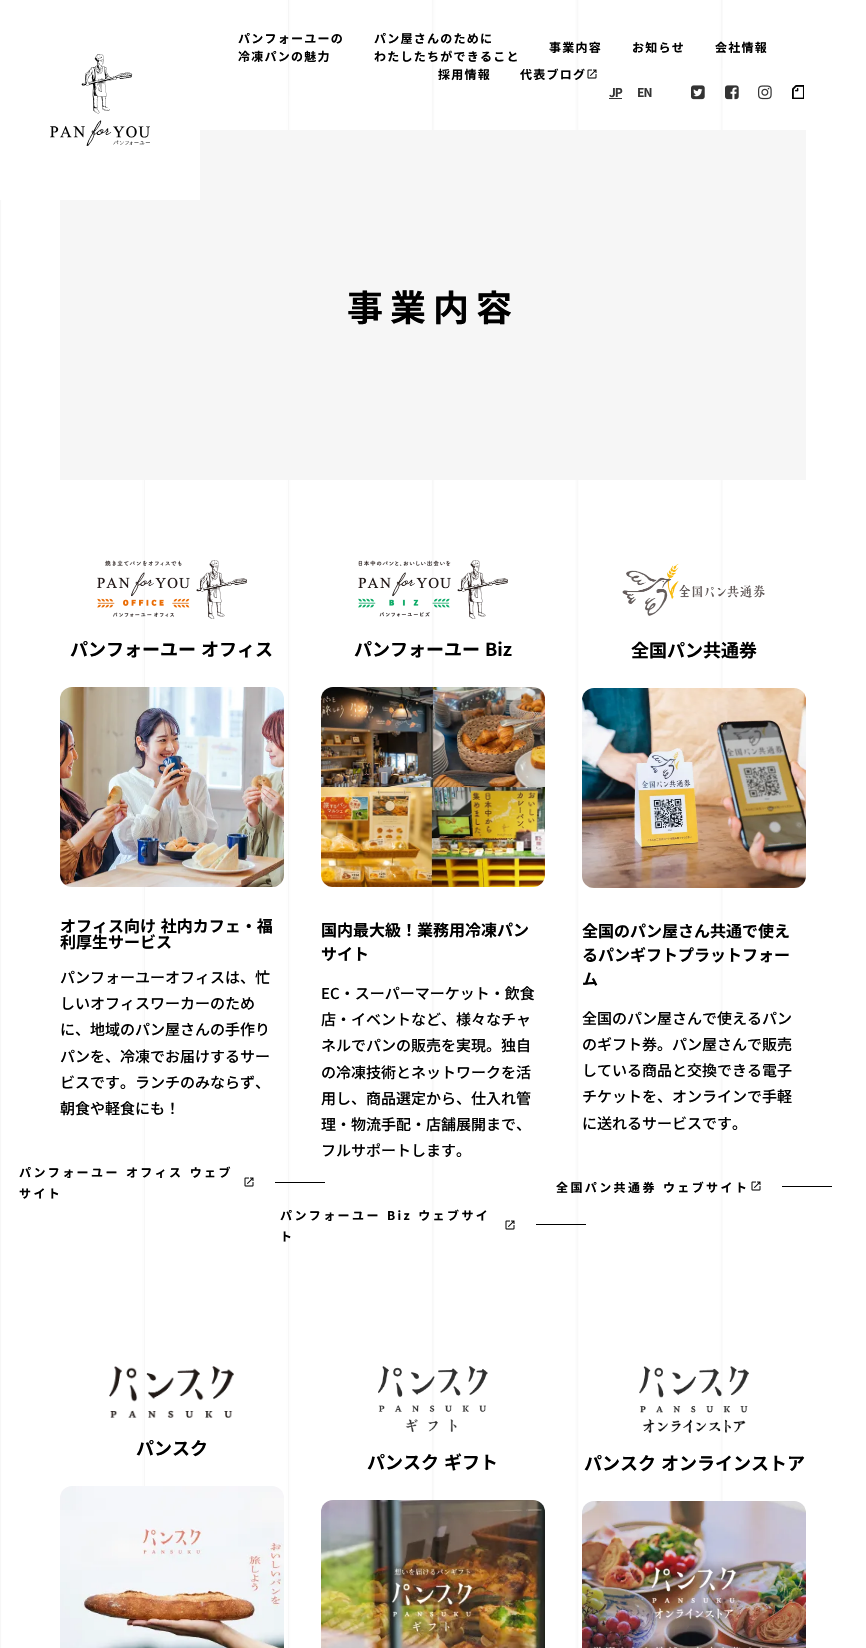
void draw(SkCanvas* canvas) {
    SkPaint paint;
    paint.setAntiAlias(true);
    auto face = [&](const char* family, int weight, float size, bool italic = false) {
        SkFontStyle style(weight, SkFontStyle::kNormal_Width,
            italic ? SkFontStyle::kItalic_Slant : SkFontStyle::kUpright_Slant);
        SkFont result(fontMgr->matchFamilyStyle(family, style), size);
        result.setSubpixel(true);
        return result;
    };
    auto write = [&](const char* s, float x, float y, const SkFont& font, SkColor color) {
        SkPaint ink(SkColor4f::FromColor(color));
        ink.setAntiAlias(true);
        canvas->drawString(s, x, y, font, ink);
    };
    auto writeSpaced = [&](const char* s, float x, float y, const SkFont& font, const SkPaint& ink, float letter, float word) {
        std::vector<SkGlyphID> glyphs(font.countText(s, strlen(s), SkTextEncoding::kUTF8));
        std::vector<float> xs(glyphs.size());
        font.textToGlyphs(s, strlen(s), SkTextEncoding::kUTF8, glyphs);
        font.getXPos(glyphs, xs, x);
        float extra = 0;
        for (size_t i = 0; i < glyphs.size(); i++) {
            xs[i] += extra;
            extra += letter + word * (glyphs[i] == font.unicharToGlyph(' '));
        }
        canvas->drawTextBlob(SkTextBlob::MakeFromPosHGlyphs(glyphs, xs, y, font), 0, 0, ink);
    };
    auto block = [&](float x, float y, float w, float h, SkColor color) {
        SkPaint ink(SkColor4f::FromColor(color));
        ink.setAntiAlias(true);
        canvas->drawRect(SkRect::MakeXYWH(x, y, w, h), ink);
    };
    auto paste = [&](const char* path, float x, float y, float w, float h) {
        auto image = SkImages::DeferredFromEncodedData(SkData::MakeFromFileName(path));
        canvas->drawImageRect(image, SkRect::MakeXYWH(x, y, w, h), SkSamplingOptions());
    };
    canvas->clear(SK_ColorWHITE);
    paste("pic1.png", 0, 0, 723, 1648);
    block(60, 130, 746, 350, SkColorSetRGB(246, 246, 246));
    block(0, 0, 200, 200, SK_ColorWHITE);
    paste("pic2.png", 50, 54, 100, 92);
    auto kFont1 = face("Noto Sans JP", 700, 12);
    paint.setColor(SK_ColorBLACK);
    writeSpaced("パンフォーユーの", 238, 43, kFont1, paint, 1.25f, 0);
    writeSpaced("冷凍パンの魅力", 238, 61, kFont1, paint, 1.25f, 0);
    writeSpaced("パン屋さんのために", 374, 43, kFont1, paint, 1.25f, 0);
    writeSpaced("わたしたちができること", 374, 61, kFont1, paint, 1.25f, 0);
    writeSpaced("事業内容", 549, 52, kFont1, paint, 1.25f, 0);
    writeSpaced("お知らせ", 632, 52, kFont1, paint, 1.25f, 0);
    writeSpaced("会社情報", 715, 52, kFont1, paint, 1.25f, 0);
    writeSpaced("採用情報", 438, 79, kFont1, paint, 1.25f, 0);
    writeSpaced("代表ブログ", 520, 79, kFont1, paint, 1.25f, 0);
    paste("pic3.png", 587, 69, 10, 10);
    paint.setColor(SkColorSetRGB(51, 51, 51));
    writeSpaced("JP", 609, 97, kFont1, paint, -1, 0);
    block(609, 98, 13, 1, SkColorSetRGB(51, 51, 51));
    writeSpaced("EN", 637, 97, kFont1, paint, -1, 0);
    paste("pic4.png", 691, 85, 14, 15);
    paste("pic5.png", 725, 85, 14, 15);
    paste("pic6.png", 758, 85, 14, 15);
    paste("pic7.png", 792, 85, 12, 14);
    auto kFont2 = face("Noto Sans JP", 700, 36);
    paint.setColor(SK_ColorBLACK);
    writeSpaced("事業内容", 347, 321, kFont2, paint, 7, 0);
    paste("pic8.png", 97, 560, 150, 59);
    auto kFont3 = face("Noto Sans JP", 700, 18);
    writeSpaced("パンフォーユー オフィス", 70, 656, kFont3, paint, 0, 1);
    block(144, 687, 1, 200, SK_ColorWHITE);
    paste("pic9.png", 60, 687, 224, 200);
    auto kFont4 = face("Noto Sans JP", 700, 16);
    writeSpaced("オフィス向け 社内カフェ・福", 60, 932, kFont4, paint, 0, 1);
    write("利厚生サービス", 60, 948, kFont4, SK_ColorBLACK);
    auto kFont5 = face("Noto Sans JP", 500, 15);
    write("パンフォーユーオフィスは、忙", 60, 983, kFont5, SK_ColorBLACK);
    write("しいオフィスワーカーのため", 60, 1009, kFont5, SK_ColorBLACK);
    write("に、地域のパン屋さんの手作り", 60, 1035, kFont5, SK_ColorBLACK);
    write("パンを、冷凍でお届けするサー", 60, 1062, kFont5, SK_ColorBLACK);
    write("ビスです。ランチのみならず、", 60, 1088, kFont5, SK_ColorBLACK);
    write("朝食や軽食にも！", 60, 1114, kFont5, SK_ColorBLACK);
    writeSpaced("パンフォーユー オフィス ウェブ", 19, 1177, kFont1, paint, 2.4f, 1);
    writeSpaced("サイト", 19, 1198, kFont1, paint, 2.4f, 0);
    paste("pic3.png", 244, 1177, 10, 10);
    block(275, 1182, 50, 1, SK_ColorBLACK);
    paste("pic10.png", 358, 560, 150, 59);
    writeSpaced("パンフォーユー Biz", 354, 656, kFont3, paint, 0, 1);
    block(432, 687, 2, 200, SK_ColorWHITE);
    paste("pic11.png", 321, 687, 224, 200);
    write("国内最大級！業務用冷凍パン", 321, 936, kFont4, SK_ColorBLACK);
    write("サイト", 321, 960, kFont4, SK_ColorBLACK);
    write("EC・スーパーマーケット・飲食", 321, 999, kFont5, SK_ColorBLACK);
    write("店・イベントなど、様々なチャ", 321, 1025, kFont5, SK_ColorBLACK);
    write("ネルでパンの販売を実現。独自", 321, 1051, kFont5, SK_ColorBLACK);
    write("の冷凍技術とネットワークを活", 321, 1078, kFont5, SK_ColorBLACK);
    write("用し、商品選定から、仕入れ管", 321, 1104, kFont5, SK_ColorBLACK);
    write("理・物流手配・店舗展開まで、", 321, 1130, kFont5, SK_ColorBLACK);
    write("フルサポートします。", 321, 1156, kFont5, SK_ColorBLACK);
    writeSpaced("パンフォーユー Biz ウェブサイ", 280, 1220, kFont1, paint, 2.4f, 1);
    writeSpaced("ト", 280, 1241, kFont1, paint, 2.4f, 0);
    paste("pic3.png", 505, 1220, 10, 10);
    block(536, 1224, 50, 1, SK_ColorBLACK);
    paste("pic12.png", 622, 563, 143, 53);
    write("全国パン共通券", 631, 657, kFont3, SK_ColorBLACK);
    block(721, 688, 2, 200, SK_ColorWHITE);
    paste("pic13.png", 582, 688, 224, 200);
    write("全国のパン屋さん共通で使え", 582, 937, kFont4, SK_ColorBLACK);
    write("るパンギフトプラットフォー", 582, 961, kFont4, SK_ColorBLACK);
    write("ム", 582, 985, kFont4, SK_ColorBLACK);
    write("全国のパン屋さんで使えるパン", 582, 1024, kFont5, SK_ColorBLACK);
    write("のギフト券。パン屋さんで販売", 582, 1050, kFont5, SK_ColorBLACK);
    write("している商品と交換できる電子", 582, 1076, kFont5, SK_ColorBLACK);
    write("チケットを、オンラインで手軽", 582, 1102, kFont5, SK_ColorBLACK);
    write("に送れるサービスです。", 582, 1129, kFont5, SK_ColorBLACK);
    writeSpaced("全国パン共通券 ウェブサイト", 556, 1192, kFont1, paint, 2.4f, 1);
    paste("pic3.png", 751, 1181, 10, 10);
    block(782, 1186, 50, 1, SK_ColorBLACK);
    paste("pic14.png", 109, 1366, 125, 52);
    write("パンスク", 136, 1455, kFont3, SK_ColorBLACK);
    block(144, 1486, 1, 12, SK_ColorWHITE);
    paste("pic15.png", 60, 1486, 224, 162);
    paste("pic16.png", 378, 1366, 110, 66);
    writeSpaced("パンスク ギフト", 367, 1469, kFont3, paint, 0, 1);
    block(432, 1500, 2, 12, SK_ColorWHITE);
    paste("pic17.png", 321, 1500, 224, 148);
    paste("pic18.png", 639, 1366, 110, 67);
    writeSpaced("パンスク オンラインストア", 584, 1470, kFont3, paint, 0, 1);
    block(721, 1501, 2, 12, SK_ColorWHITE);
    paste("pic19.png", 582, 1501, 224, 147);
}
